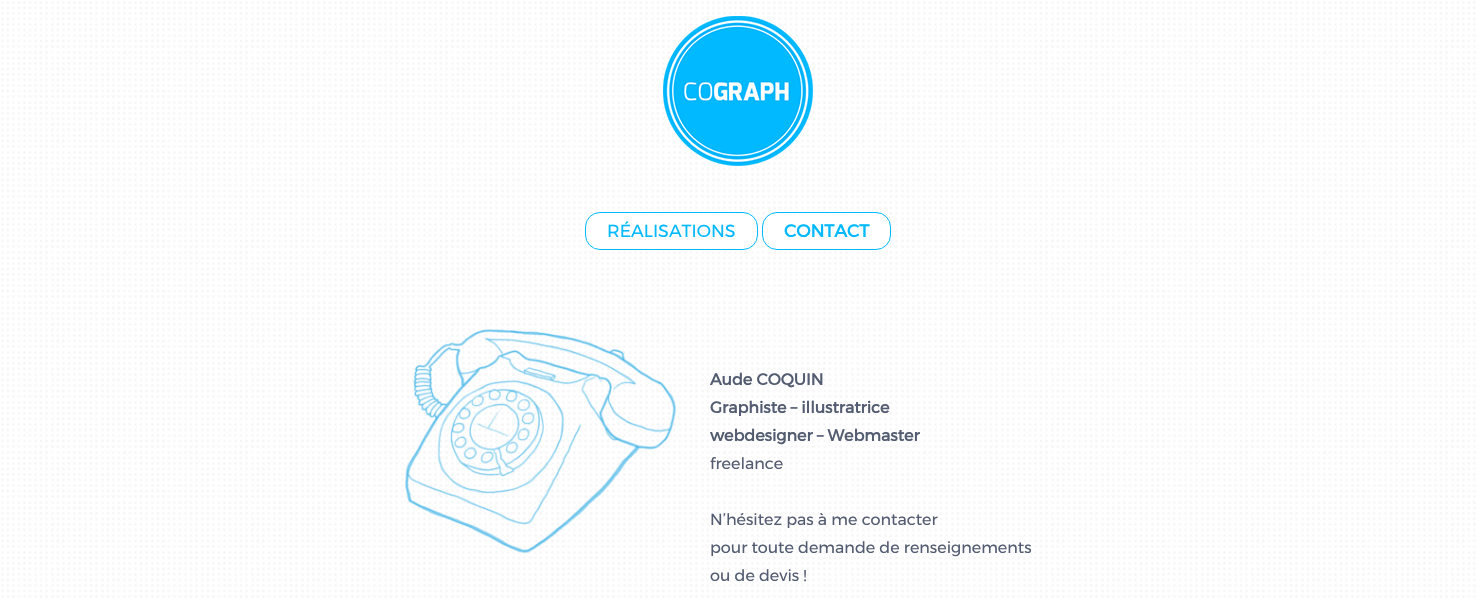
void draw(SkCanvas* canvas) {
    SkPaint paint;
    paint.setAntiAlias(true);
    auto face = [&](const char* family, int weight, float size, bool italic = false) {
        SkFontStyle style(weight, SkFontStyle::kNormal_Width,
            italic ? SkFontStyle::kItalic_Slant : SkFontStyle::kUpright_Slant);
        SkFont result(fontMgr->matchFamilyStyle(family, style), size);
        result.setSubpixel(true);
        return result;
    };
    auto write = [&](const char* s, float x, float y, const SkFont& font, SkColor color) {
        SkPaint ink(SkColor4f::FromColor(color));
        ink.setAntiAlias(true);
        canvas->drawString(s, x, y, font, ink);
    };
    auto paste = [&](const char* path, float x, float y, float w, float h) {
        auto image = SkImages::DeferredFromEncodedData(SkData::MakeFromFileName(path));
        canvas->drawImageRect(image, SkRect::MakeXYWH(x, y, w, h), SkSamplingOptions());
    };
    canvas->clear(SK_ColorWHITE);
    paste("pic1.png", 1, 1, 1475, 597);
    paste("pic2.png", 663, 16, 150, 150);
    paint.setColor(SK_ColorWHITE);
    canvas->drawRoundRect(SkRect::MakeXYWH(585.5f, 212.5f, 172, 37), 14.5f, 14.5f, paint);
    paint.setStyle(SkPaint::kStroke_Style);
    paint.setStrokeWidth(1);
    paint.setColor(SkColorSetRGB(0, 185, 255));
    canvas->drawRoundRect(SkRect::MakeXYWH(585.5f, 212.5f, 172, 37), 14.5f, 14.5f, paint);
    auto kFont1 = face("Montserrat", 400, 17.5f);
    write("RÉALISATIONS", 607, 237, kFont1, SkColorSetRGB(0, 185, 255));
    paint.setStyle(SkPaint::kFill_Style);
    paint.setColor(SK_ColorWHITE);
    canvas->drawRoundRect(SkRect::MakeXYWH(762.5f, 212.5f, 128, 37), 14.5f, 14.5f, paint);
    paint.setStyle(SkPaint::kStroke_Style);
    paint.setColor(SkColorSetRGB(0, 185, 255));
    canvas->drawRoundRect(SkRect::MakeXYWH(762.5f, 212.5f, 128, 37), 14.5f, 14.5f, paint);
    auto kFont2 = face("Montserrat", 700, 17.5f);
    write("CONTACT", 784, 237, kFont2, SkColorSetRGB(0, 185, 255));
    paste("pic3.png", 404, 329, 273, 225);
    auto kFont3 = face("Montserrat", 700, 16);
    write("Aude COQUIN", 710, 385, kFont3, SkColorSetRGB(83, 92, 113));
    write("Graphiste – illustratrice", 710, 413, kFont3, SkColorSetRGB(83, 92, 113));
    write("webdesigner – Webmaster", 710, 441, kFont3, SkColorSetRGB(83, 92, 113));
    auto kFont4 = face("Montserrat", 400, 16);
    write("freelance", 710, 469, kFont4, SkColorSetRGB(83, 92, 113));
    write("N’hésitez pas à me contacter", 710, 525, kFont4, SkColorSetRGB(83, 92, 113));
    write("pour toute demande de renseignements", 710, 553, kFont4, SkColorSetRGB(83, 92, 113));
    write("ou de devis !", 710, 581, kFont4, SkColorSetRGB(83, 92, 113));
}
